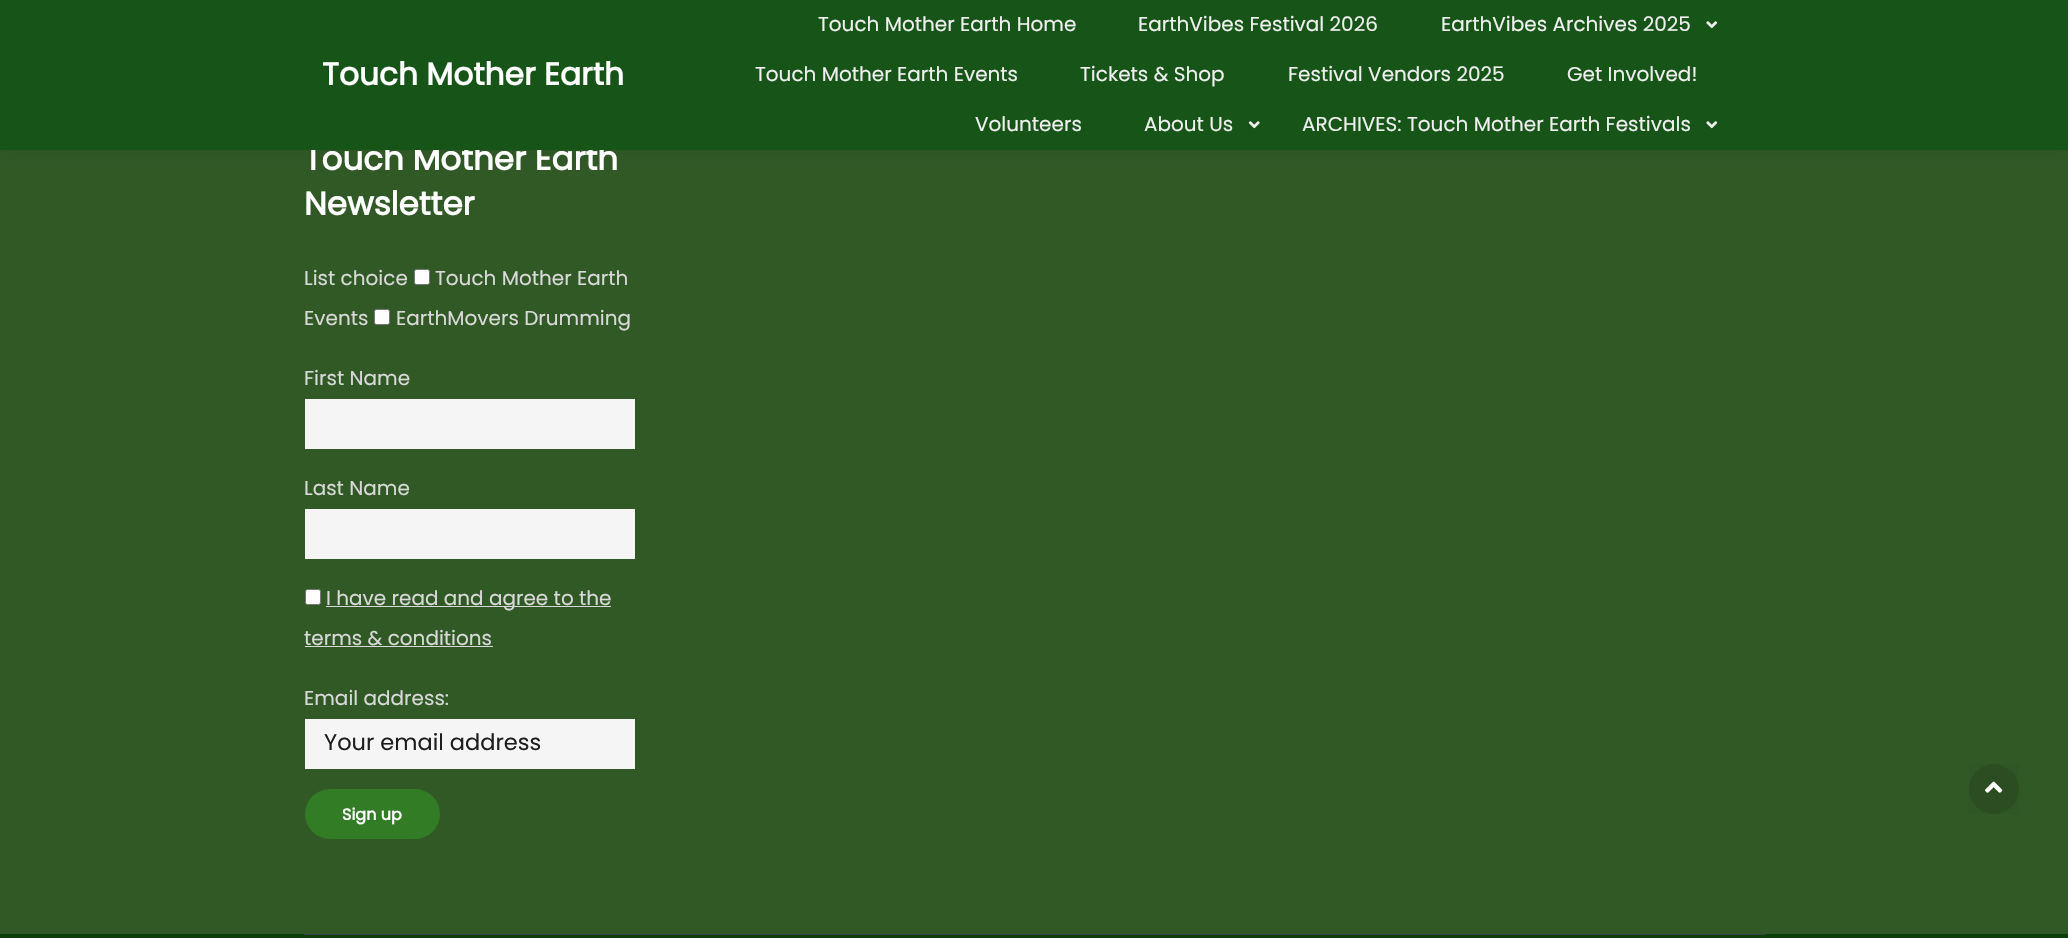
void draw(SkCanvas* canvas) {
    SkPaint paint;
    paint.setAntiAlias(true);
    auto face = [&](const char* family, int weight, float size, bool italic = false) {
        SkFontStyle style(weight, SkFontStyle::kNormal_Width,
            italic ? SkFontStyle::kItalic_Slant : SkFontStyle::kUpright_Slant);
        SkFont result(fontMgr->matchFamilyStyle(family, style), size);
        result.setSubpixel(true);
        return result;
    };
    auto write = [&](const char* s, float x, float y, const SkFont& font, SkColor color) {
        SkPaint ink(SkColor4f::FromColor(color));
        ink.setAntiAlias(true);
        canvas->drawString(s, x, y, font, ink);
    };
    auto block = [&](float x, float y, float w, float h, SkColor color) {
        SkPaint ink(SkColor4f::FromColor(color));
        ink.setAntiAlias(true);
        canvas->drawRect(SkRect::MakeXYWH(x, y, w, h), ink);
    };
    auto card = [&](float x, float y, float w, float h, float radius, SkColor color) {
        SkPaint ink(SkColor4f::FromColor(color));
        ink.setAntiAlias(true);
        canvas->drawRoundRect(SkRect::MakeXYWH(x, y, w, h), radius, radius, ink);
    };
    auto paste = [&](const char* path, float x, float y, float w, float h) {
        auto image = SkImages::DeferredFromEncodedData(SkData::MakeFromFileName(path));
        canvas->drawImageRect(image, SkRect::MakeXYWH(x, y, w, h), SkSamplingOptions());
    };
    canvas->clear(SkColorSetRGB(49, 89, 38));
    paint.setColor(SkColorSetARGB(23, 0, 0, 0));
    paint.setMaskFilter(SkMaskFilter::MakeBlur(kNormal_SkBlurStyle, 7.5f));
    canvas->drawRect(SkRect::MakeXYWH(0, 0, 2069, 150), paint);
    paint.setMaskFilter(nullptr);
    auto kFont1 = face("Poppins", 700, 32.5f);
    write("Touch Mother Earth", 304, 170, kFont1, SK_ColorWHITE);
    block(0, 0, 2068, 150, SkColorSetRGB(23, 84, 24));
    auto kFont2 = face("Poppins", 700, 31.25f);
    write("Touch Mother Earth", 322, 85, kFont2, SK_ColorWHITE);
    auto kFont3 = face("Poppins", 400, 20);
    write("Touch Mother Earth Home", 818, 31, kFont3, SkColorSetRGB(240, 240, 240));
    write("EarthVibes Festival 2026", 1138, 31, kFont3, SkColorSetRGB(240, 240, 240));
    write("EarthVibes Archives 2025", 1441, 31, kFont3, SkColorSetRGB(240, 240, 240));
    paste("pic1.png", 1706, 21, 12, 8);
    write("Touch Mother Earth Events", 755, 81, kFont3, SkColorSetRGB(240, 240, 240));
    write("Tickets & Shop", 1080, 81, kFont3, SkColorSetRGB(240, 240, 240));
    write("Festival Vendors 2025", 1288, 81, kFont3, SkColorSetRGB(240, 240, 240));
    write("Get Involved!", 1567, 81, kFont3, SkColorSetRGB(240, 240, 240));
    write("Volunteers", 975, 131, kFont3, SkColorSetRGB(240, 240, 240));
    write("About Us", 1144, 131, kFont3, SkColorSetRGB(240, 240, 240));
    paste("pic2.png", 1248, 121, 12, 8);
    write("ARCHIVES: Touch Mother Earth Festivals", 1302, 131, kFont3, SkColorSetRGB(240, 240, 240));
    paste("pic1.png", 1706, 121, 12, 8);
    write("Newsletter", 304, 215, kFont1, SK_ColorWHITE);
    write("List choice", 304, 285, kFont3, SkColorSetRGB(217, 217, 217));
    paint.setColor(SK_ColorWHITE);
    canvas->drawRoundRect(SkRect::MakeXYWH(414.5f, 269.5f, 15, 15), 2, 2, paint);
    paint.setStyle(SkPaint::kStroke_Style);
    paint.setStrokeWidth(1);
    paint.setColor(SkColorSetRGB(118, 118, 118));
    canvas->drawRoundRect(SkRect::MakeXYWH(414.5f, 269.5f, 15, 15), 2, 2, paint);
    write("Touch Mother Earth", 435, 285, kFont3, SkColorSetRGB(217, 217, 217));
    write("Events", 304, 325, kFont3, SkColorSetRGB(217, 217, 217));
    paint.setStyle(SkPaint::kFill_Style);
    paint.setColor(SK_ColorWHITE);
    canvas->drawRoundRect(SkRect::MakeXYWH(374.5f, 309.5f, 15, 15), 2, 2, paint);
    paint.setStyle(SkPaint::kStroke_Style);
    paint.setColor(SkColorSetRGB(118, 118, 118));
    canvas->drawRoundRect(SkRect::MakeXYWH(374.5f, 309.5f, 15, 15), 2, 2, paint);
    write("EarthMovers Drumming", 396, 325, kFont3, SkColorSetRGB(217, 217, 217));
    write("First Name", 304, 385, kFont3, SkColorSetRGB(217, 217, 217));
    block(305, 399, 330, 50, SkColorSetRGB(245, 245, 245));
    write("Last Name", 304, 495, kFont3, SkColorSetRGB(217, 217, 217));
    block(305, 509, 330, 50, SkColorSetRGB(245, 245, 245));
    paint.setStyle(SkPaint::kFill_Style);
    paint.setColor(SK_ColorWHITE);
    canvas->drawRoundRect(SkRect::MakeXYWH(305.5f, 589.5f, 15, 15), 2, 2, paint);
    paint.setStyle(SkPaint::kStroke_Style);
    paint.setColor(SkColorSetRGB(118, 118, 118));
    canvas->drawRoundRect(SkRect::MakeXYWH(305.5f, 589.5f, 15, 15), 2, 2, paint);
    block(326, 606, 285, 1, SkColorSetRGB(217, 217, 217));
    write("I have read and agree to the", 326, 605, kFont3, SkColorSetRGB(217, 217, 217));
    write("terms & conditions", 304, 645, kFont3, SkColorSetRGB(217, 217, 217));
    block(305, 646, 188, 1, SkColorSetRGB(217, 217, 217));
    write("Email address:", 304, 705, kFont3, SkColorSetRGB(217, 217, 217));
    block(305, 719, 330, 50, SkColorSetRGB(245, 245, 245));
    auto kFont4 = face("Poppins", 400, 22.5f);
    write("Your email address", 324, 750, kFont4, SkColorSetRGB(30, 30, 30));
    card(305, 789, 135, 50, 25, SkColorSetRGB(49, 124, 36));
    auto kFont5 = face("Poppins", 700, 16);
    write("Sign up", 342, 820, kFont5, SK_ColorWHITE);
    block(0, 934, 2068, 4, SkColorSetRGB(11, 63, 10));
    block(304, 934, 1462, 1, SkColorSetRGB(57, 64, 74));
    paint.setStyle(SkPaint::kFill_Style);
    paint.setColor(SkColorSetRGB(44, 80, 34));
    canvas->drawCircle(1994, 789, 25, paint);
    block(1969, 764, 50, 50, SkColorSetARGB(10, 0, 0, 0));
    paste("pic3.png", 1985, 781, 18, 12);
}
